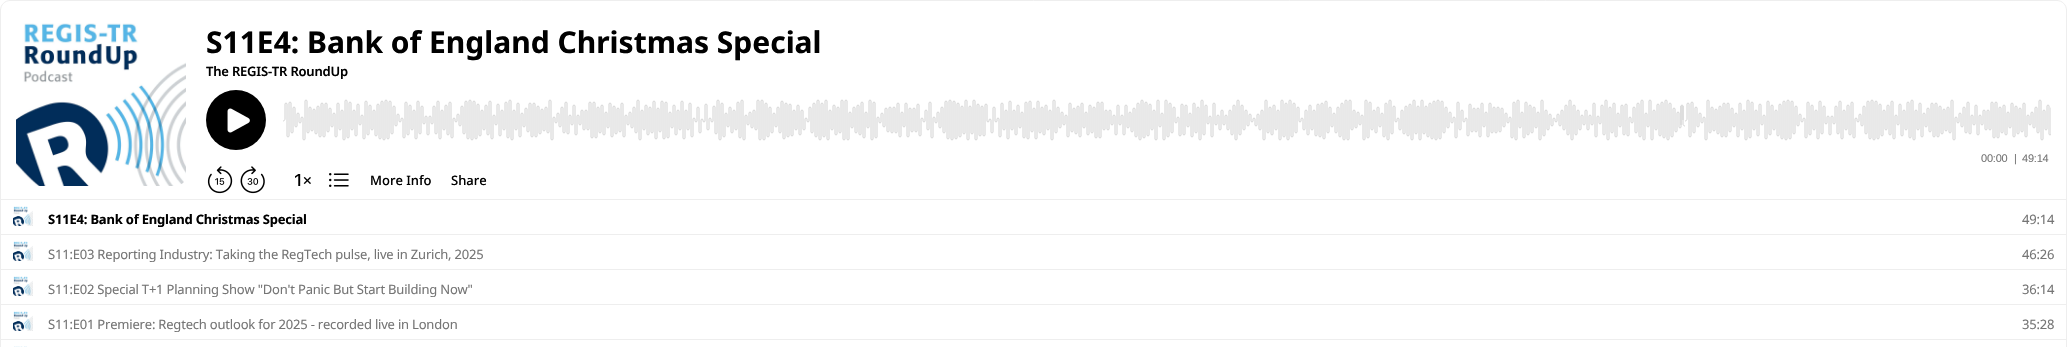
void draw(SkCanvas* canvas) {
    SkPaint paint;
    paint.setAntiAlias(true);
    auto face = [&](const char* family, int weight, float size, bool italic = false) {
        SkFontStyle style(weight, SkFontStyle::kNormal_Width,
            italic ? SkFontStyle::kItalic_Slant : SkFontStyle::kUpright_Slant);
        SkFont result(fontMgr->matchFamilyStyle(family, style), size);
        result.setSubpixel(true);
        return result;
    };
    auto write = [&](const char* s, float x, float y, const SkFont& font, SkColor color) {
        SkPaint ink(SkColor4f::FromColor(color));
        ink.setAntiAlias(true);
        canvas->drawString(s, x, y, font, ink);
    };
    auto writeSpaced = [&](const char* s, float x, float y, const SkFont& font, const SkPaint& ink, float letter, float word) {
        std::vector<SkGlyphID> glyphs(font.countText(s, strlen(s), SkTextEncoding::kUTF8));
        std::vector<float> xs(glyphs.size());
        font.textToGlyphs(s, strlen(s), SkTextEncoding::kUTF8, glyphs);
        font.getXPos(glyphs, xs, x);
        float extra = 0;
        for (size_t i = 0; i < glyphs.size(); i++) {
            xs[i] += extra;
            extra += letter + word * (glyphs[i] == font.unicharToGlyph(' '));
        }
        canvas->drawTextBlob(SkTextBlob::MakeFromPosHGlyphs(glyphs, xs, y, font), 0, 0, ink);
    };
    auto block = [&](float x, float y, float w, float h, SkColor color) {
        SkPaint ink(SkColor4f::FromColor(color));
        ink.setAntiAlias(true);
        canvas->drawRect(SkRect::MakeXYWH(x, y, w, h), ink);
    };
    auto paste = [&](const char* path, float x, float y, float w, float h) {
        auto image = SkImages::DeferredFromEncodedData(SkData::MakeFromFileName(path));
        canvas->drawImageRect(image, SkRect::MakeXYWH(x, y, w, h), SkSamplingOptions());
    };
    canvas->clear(SK_ColorWHITE);
    paint.setStyle(SkPaint::kStroke_Style);
    paint.setStrokeWidth(1);
    paint.setColor(SkColorSetRGB(238, 238, 238));
    canvas->drawPath(SkPathBuilder().moveTo(10, 0.5f).lineTo(2057, 0.5f).cubicTo(2062, 0.5f, 2066.5f, 5, 2066.5f, 10).lineTo(2066.5f, 199.5f).lineTo(0.5f, 199.5f).lineTo(0.5f, 10).cubicTo(0.5f, 5, 5, 0.5f, 10, 0.5f).close().detach(), paint);
    paste("pic1.png", 16, 23, 170, 163);
    auto kFont1 = face("Noto Sans", 700, 30);
    write("S11E4: Bank of England Christmas Special", 206, 53, kFont1, SK_ColorBLACK);
    auto kFont2 = face("Noto Sans", 600, 13);
    paint.setStyle(SkPaint::kFill_Style);
    paint.setColor(SK_ColorBLACK);
    writeSpaced("The REGIS-TR RoundUp", 206, 76, kFont2, paint, -0.2f, 0);
    canvas->drawCircle(236, 120, 30, paint);
    paste("pic2.png", 227, 108, 23, 25);
    paste("pic3.png", 207, 166, 26, 28);
    paste("pic4.png", 240, 166, 25, 28);
    paste("pic5.png", 283, 99, 1768, 42);
    auto kFont3 = face("Liberation Sans", 400, 11);
    paint.setColor(SkColorSetRGB(117, 117, 117));
    writeSpaced("00:00", 1981, 162, kFont3, paint, -0.2f, 0);
    writeSpaced("|", 2014, 162, kFont3, paint, -0.2f, 0);
    writeSpaced("49:14", 2022, 162, kFont3, paint, -0.2f, 0);
    paste("pic6.png", 295, 174, 16, 12);
    paste("pic7.png", 329, 173, 20, 14);
    auto kFont4 = face("Noto Sans", 500, 13);
    write("More Info", 370, 185, kFont4, SK_ColorBLACK);
    write("Share", 451, 185, kFont4, SK_ColorBLACK);
    paint.setStyle(SkPaint::kStroke_Style);
    paint.setColor(SkColorSetRGB(238, 238, 238));
    canvas->drawRect(SkRect::MakeXYWH(0.5f, 199.5f, 2066, 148), paint);
    block(1, 234, 2065, 1, SkColorSetRGB(238, 238, 238));
    paste("pic8.png", 13, 206, 20, 20);
    auto kFont5 = face("Noto Sans", 700, 13);
    paint.setStyle(SkPaint::kFill_Style);
    paint.setColor(SK_ColorBLACK);
    writeSpaced("S11E4: Bank of England Christmas Special", 48, 224, kFont5, paint, -0.2f, 0);
    auto kFont6 = face("Noto Sans", 400, 13);
    paint.setColor(SkColorSetRGB(117, 117, 117));
    writeSpaced("49:14", 2022, 224, kFont6, paint, -0.2f, 0);
    block(1, 269, 2065, 1, SkColorSetRGB(238, 238, 238));
    paste("pic8.png", 13, 241, 20, 20);
    writeSpaced("S11:E03 Reporting Industry: Taking the RegTech pulse, live in Zurich, 2025", 48, 259, kFont6, paint, -0.2f, 0);
    writeSpaced("46:26", 2022, 259, kFont6, paint, -0.2f, 0);
    block(1, 304, 2065, 1, SkColorSetRGB(238, 238, 238));
    paste("pic8.png", 13, 276, 20, 20);
    writeSpaced("S11:E02 Special T+1 Planning Show \"Don't Panic But Start Building Now\"", 48, 294, kFont6, paint, -0.2f, 0);
    writeSpaced("36:14", 2022, 294, kFont6, paint, -0.2f, 0);
    block(1, 339, 2065, 1, SkColorSetRGB(238, 238, 238));
    paste("pic8.png", 13, 311, 20, 20);
    writeSpaced("S11:E01 Premiere: Regtech outlook for 2025 - recorded live in London", 48, 329, kFont6, paint, -0.2f, 0);
    writeSpaced("35:28", 2022, 329, kFont6, paint, -0.2f, 0);
    paste("pic9.png", 14, 346, 13, 1);
}
